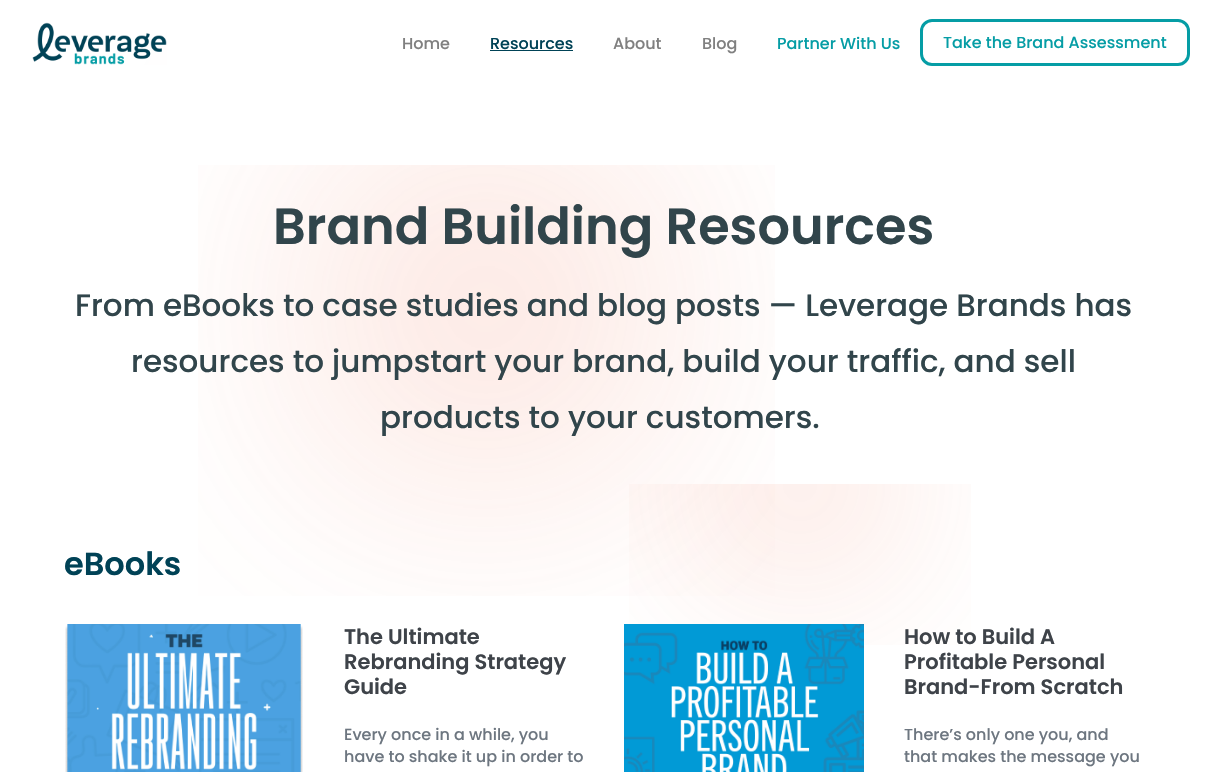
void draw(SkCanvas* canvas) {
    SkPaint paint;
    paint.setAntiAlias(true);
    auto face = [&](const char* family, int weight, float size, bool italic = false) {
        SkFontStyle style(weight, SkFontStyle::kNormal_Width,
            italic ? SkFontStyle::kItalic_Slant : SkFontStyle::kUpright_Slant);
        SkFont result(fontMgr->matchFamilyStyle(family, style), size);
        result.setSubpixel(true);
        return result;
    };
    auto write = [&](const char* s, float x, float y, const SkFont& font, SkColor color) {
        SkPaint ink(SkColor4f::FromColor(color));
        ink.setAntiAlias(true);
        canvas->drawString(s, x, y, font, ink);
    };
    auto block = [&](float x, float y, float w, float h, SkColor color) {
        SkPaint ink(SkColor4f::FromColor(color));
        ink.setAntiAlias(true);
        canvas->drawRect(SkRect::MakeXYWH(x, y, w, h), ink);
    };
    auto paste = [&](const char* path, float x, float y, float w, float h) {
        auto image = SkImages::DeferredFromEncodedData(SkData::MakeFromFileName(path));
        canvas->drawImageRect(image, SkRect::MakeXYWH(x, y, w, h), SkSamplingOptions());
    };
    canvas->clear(SK_ColorWHITE);
    paste("pic1.png", 32, 22, 135, 43);
    auto kFont1 = face("Poppins", 500, 16);
    write("Home", 402, 49, kFont1, SkColorSetRGB(128, 128, 128));
    write("Resources", 490, 49, kFont1, SkColorSetRGB(0, 66, 86));
    block(490, 50, 83, 1, SkColorSetRGB(0, 66, 86));
    write("About", 613, 49, kFont1, SkColorSetRGB(128, 128, 128));
    write("Blog", 702, 49, kFont1, SkColorSetRGB(128, 128, 128));
    write("Partner With Us", 777, 49, kFont1, SkColorSetRGB(5, 157, 165));
    paint.setStyle(SkPaint::kStroke_Style);
    paint.setStrokeWidth(3);
    paint.setColor(SkColorSetRGB(5, 157, 165));
    canvas->drawRoundRect(SkRect::MakeXYWH(921.5f, 20.5f, 267, 44), 10.5f, 10.5f, paint);
    write("Take the Brand Assessment", 943, 48, kFont1, SkColorSetRGB(5, 157, 165));
    paste("pic2.png", 198, 165, 577, 431);
    paste("pic3.png", 629, 484, 342, 161);
    auto kFont2 = face("Poppins", 600, 51);
    write("Brand Building Resources", 273, 244, kFont2, SkColorSetRGB(49, 69, 75));
    auto kFont3 = face("Poppins", 500, 31);
    write("From eBooks to case studies and blog posts — Leverage Brands has", 75, 316, kFont3, SkColorSetRGB(49, 69, 75));
    write("resources to jumpstart your brand, build your traffic, and sell", 131, 372, kFont3, SkColorSetRGB(49, 69, 75));
    write("products to your customers.", 380, 428, kFont3, SkColorSetRGB(49, 69, 75));
    auto kFont4 = face("Poppins", 600, 32);
    write("eBooks", 64, 575, kFont4, SkColorSetRGB(0, 66, 86));
    paste("pic4.png", 65, 624, 238, 148);
    auto kFont5 = face("Poppins", 600, 21);
    write("The Ultimate", 344, 644, kFont5, SkColorSetRGB(62, 67, 73));
    write("Rebranding Strategy", 344, 669, kFont5, SkColorSetRGB(62, 67, 73));
    write("Guide", 344, 694, kFont5, SkColorSetRGB(62, 67, 73));
    write("Every once in a while, you", 344, 740, kFont1, SkColorSetRGB(109, 118, 128));
    write("have to shake it up in order to", 344, 762, kFont1, SkColorSetRGB(109, 118, 128));
    paste("pic5.png", 624, 624, 240, 148);
    write("How to Build A", 904, 644, kFont5, SkColorSetRGB(62, 67, 73));
    write("Profitable Personal", 904, 669, kFont5, SkColorSetRGB(62, 67, 73));
    write("Brand-From Scratch", 904, 694, kFont5, SkColorSetRGB(62, 67, 73));
    write("There’s only one you, and", 904, 740, kFont1, SkColorSetRGB(109, 118, 128));
    write("that makes the message you", 904, 762, kFont1, SkColorSetRGB(109, 118, 128));
}
